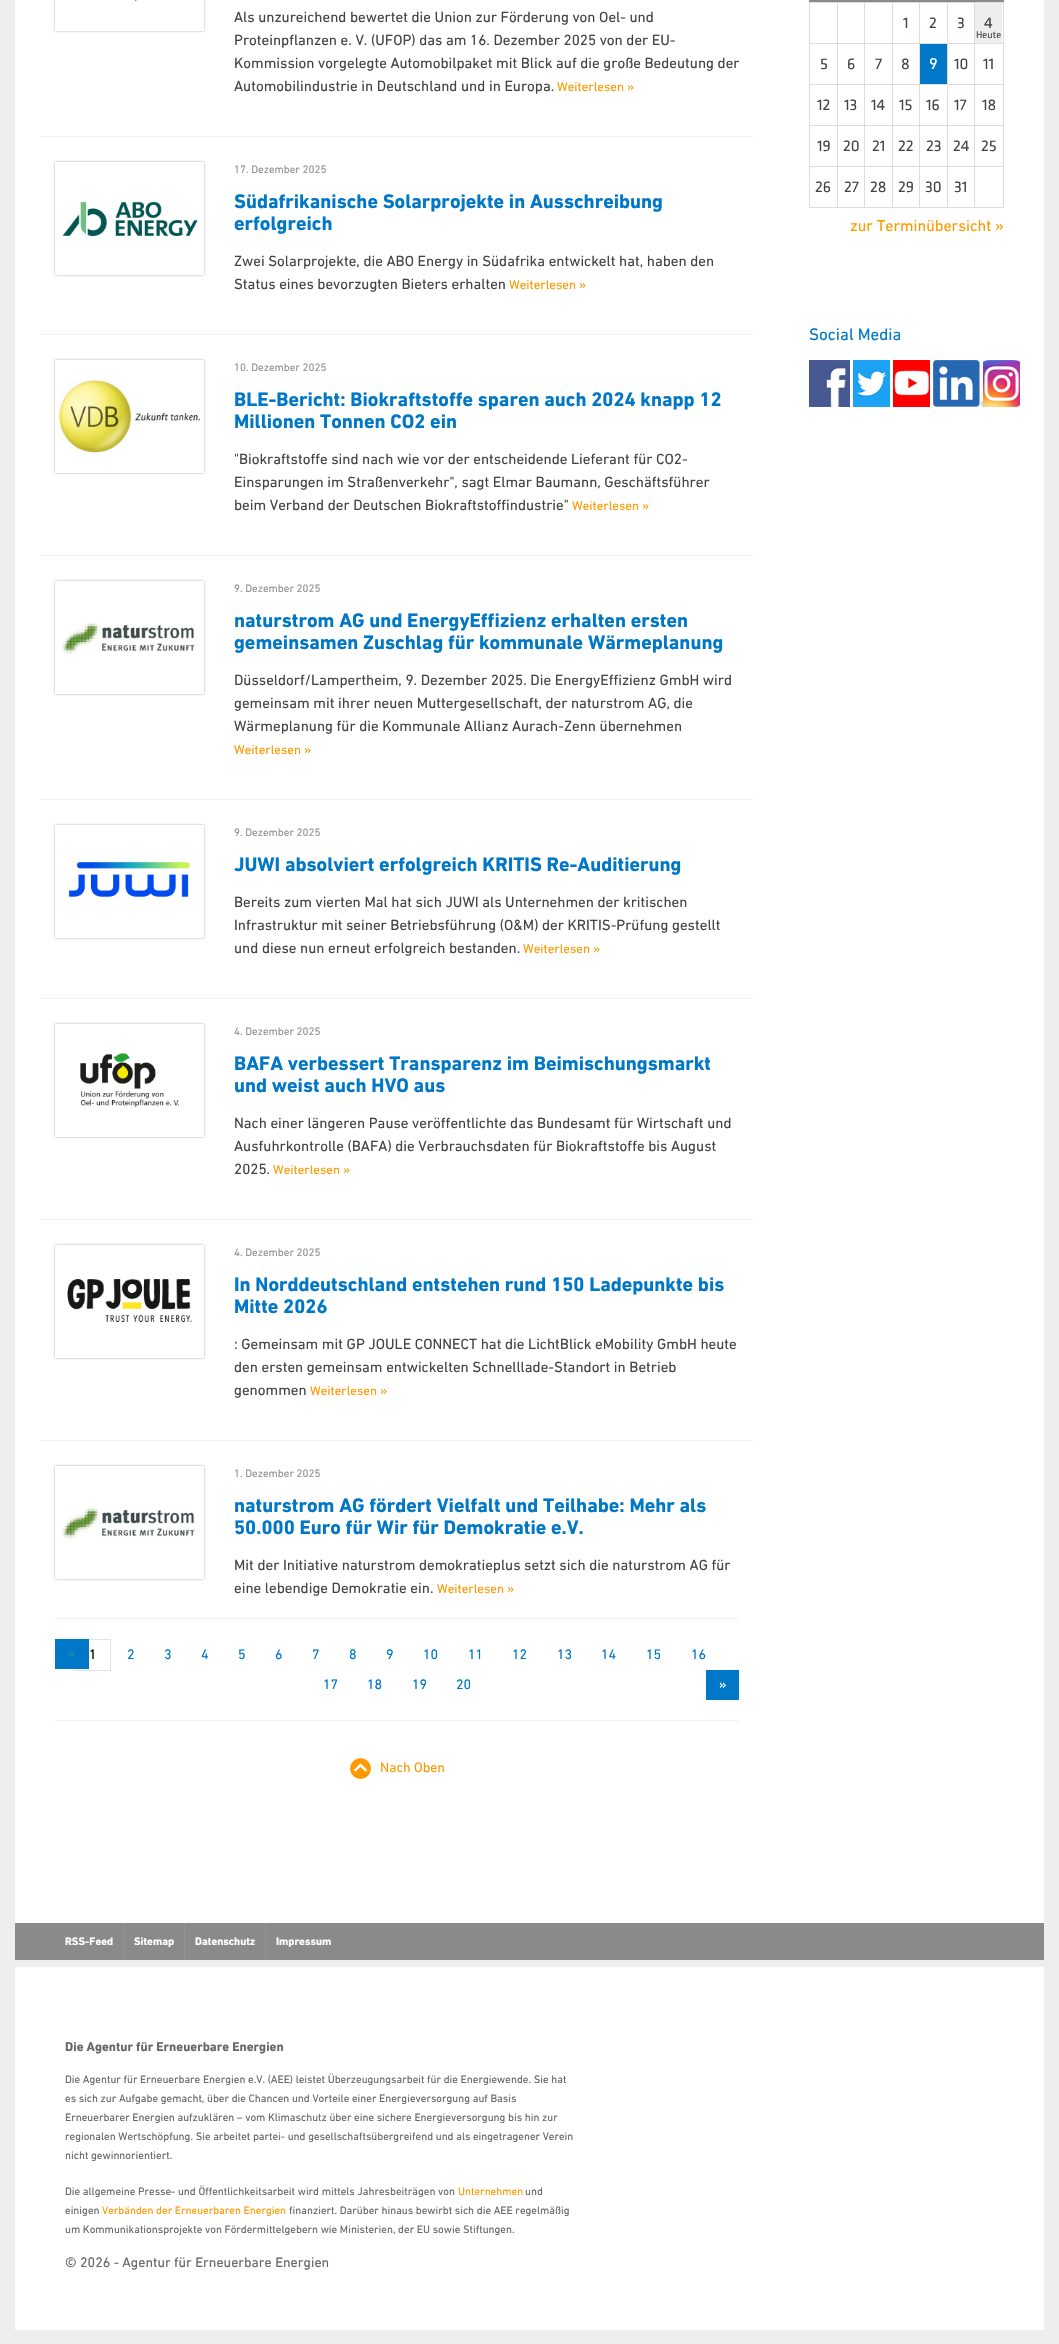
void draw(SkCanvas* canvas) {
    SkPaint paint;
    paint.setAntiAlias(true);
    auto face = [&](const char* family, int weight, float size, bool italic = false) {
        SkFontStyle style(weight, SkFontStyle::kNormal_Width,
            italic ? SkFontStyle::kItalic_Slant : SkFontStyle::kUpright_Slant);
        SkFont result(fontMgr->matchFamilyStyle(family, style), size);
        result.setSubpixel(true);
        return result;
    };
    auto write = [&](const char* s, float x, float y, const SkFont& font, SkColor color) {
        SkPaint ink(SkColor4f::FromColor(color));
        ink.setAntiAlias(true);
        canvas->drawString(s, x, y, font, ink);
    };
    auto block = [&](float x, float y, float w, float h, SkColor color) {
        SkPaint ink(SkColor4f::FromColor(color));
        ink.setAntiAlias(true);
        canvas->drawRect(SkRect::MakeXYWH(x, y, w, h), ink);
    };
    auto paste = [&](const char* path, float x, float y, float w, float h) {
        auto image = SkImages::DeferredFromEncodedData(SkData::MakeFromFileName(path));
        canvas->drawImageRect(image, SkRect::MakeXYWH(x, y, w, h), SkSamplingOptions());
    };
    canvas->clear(SkColorSetRGB(238, 238, 238));
    block(15, 0, 1029, 1923, SK_ColorWHITE);
    canvas->save();
    canvas->clipPath(SkPathBuilder(SkPathFillType::kEvenOdd).moveTo(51, 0).lineTo(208, 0).lineTo(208, 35).lineTo(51, 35).close().moveTo(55, -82).lineTo(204, -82).lineTo(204, 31).lineTo(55, 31).close().detach(), true);
    paint.setColor(SkColorSetARGB(89, 0, 0, 0));
    paint.setMaskFilter(SkMaskFilter::MakeBlur(kNormal_SkBlurStyle, 1));
    canvas->drawRect(SkRect::MakeXYWH(55, -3, 149, 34), paint);
    paint.setMaskFilter(nullptr);
    canvas->restore();
    paste("pic1.png", 135, 0, 2, 2);
    auto kFont1 = face("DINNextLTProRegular", 400, 15);
    write("Als unzureichend bewertet die Union zur Förderung von Oel- und", 234, 22, kFont1, SkColorSetRGB(68, 68, 68));
    write("Proteinpflanzen e. V. (UFOP) das am 16. Dezember 2025 von der EU-", 234, 45, kFont1, SkColorSetRGB(68, 68, 68));
    write("Kommission vorgelegte Automobilpaket mit Blick auf die große Bedeutung der", 234, 68, kFont1, SkColorSetRGB(68, 68, 68));
    write("Automobilindustrie in Deutschland und in Europa.", 234, 91, kFont1, SkColorSetRGB(68, 68, 68));
    auto kFont2 = face("DINNextLTProRegular", 400, 13);
    write("Weiterlesen »", 557, 91, kFont2, SkColorSetRGB(255, 153, 0));
    block(40, 136, 714, 1, SkColorSetRGB(242, 242, 242));
    canvas->save();
    canvas->clipPath(SkPathBuilder(SkPathFillType::kEvenOdd).moveTo(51, 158).lineTo(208, 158).lineTo(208, 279).lineTo(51, 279).close().moveTo(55, 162).lineTo(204, 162).lineTo(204, 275).lineTo(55, 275).close().detach(), true);
    paint.setMaskFilter(SkMaskFilter::MakeBlur(kNormal_SkBlurStyle, 1));
    canvas->drawRect(SkRect::MakeXYWH(55, 162, 149, 113), paint);
    paint.setMaskFilter(nullptr);
    canvas->restore();
    paste("pic2.png", 62, 201, 136, 36);
    auto kFont3 = face("DINNextLTProRegular", 400, 11);
    write("17. Dezember 2025", 234, 173, kFont3, SkColorSetRGB(146, 147, 151));
    auto kFont4 = face("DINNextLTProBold", 700, 20);
    write("Südafrikanische Solarprojekte in Ausschreibung", 234, 208, kFont4, SkColorSetRGB(0, 119, 199));
    write("erfolgreich", 234, 230, kFont4, SkColorSetRGB(0, 119, 199));
    write("Zwei Solarprojekte, die ABO Energy in Südafrika entwickelt hat, haben den", 234, 266, kFont1, SkColorSetRGB(68, 68, 68));
    write("Status eines bevorzugten Bieters erhalten", 234, 289, kFont1, SkColorSetRGB(68, 68, 68));
    write("Weiterlesen »", 509, 289, kFont2, SkColorSetRGB(255, 153, 0));
    block(40, 334, 714, 1, SkColorSetRGB(242, 242, 242));
    canvas->save();
    canvas->clipPath(SkPathBuilder(SkPathFillType::kEvenOdd).moveTo(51, 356).lineTo(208, 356).lineTo(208, 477).lineTo(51, 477).close().moveTo(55, 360).lineTo(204, 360).lineTo(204, 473).lineTo(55, 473).close().detach(), true);
    paint.setMaskFilter(SkMaskFilter::MakeBlur(kNormal_SkBlurStyle, 1));
    canvas->drawRect(SkRect::MakeXYWH(55, 360, 149, 113), paint);
    paint.setMaskFilter(nullptr);
    canvas->restore();
    paste("pic3.png", 57, 379, 143, 75);
    write("10. Dezember 2025", 234, 371, kFont3, SkColorSetRGB(146, 147, 151));
    write("BLE-Bericht: Biokraftstoffe sparen auch 2024 knapp 12", 234, 406, kFont4, SkColorSetRGB(0, 119, 199));
    write("Millionen Tonnen CO2 ein", 234, 428, kFont4, SkColorSetRGB(0, 119, 199));
    write("\"Biokraftstoffe sind nach wie vor der entscheidende Lieferant für CO2-", 234, 464, kFont1, SkColorSetRGB(68, 68, 68));
    write("Einsparungen im Straßenverkehr\", sagt Elmar Baumann, Geschäftsführer", 234, 487, kFont1, SkColorSetRGB(68, 68, 68));
    write("beim Verband der Deutschen Biokraftstoffindustrie\"", 234, 510, kFont1, SkColorSetRGB(68, 68, 68));
    write("Weiterlesen »", 572, 510, kFont2, SkColorSetRGB(255, 153, 0));
    block(40, 555, 714, 1, SkColorSetRGB(242, 242, 242));
    canvas->save();
    canvas->clipPath(SkPathBuilder(SkPathFillType::kEvenOdd).moveTo(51, 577).lineTo(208, 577).lineTo(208, 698).lineTo(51, 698).close().moveTo(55, 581).lineTo(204, 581).lineTo(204, 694).lineTo(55, 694).close().detach(), true);
    paint.setMaskFilter(SkMaskFilter::MakeBlur(kNormal_SkBlurStyle, 1));
    canvas->drawRect(SkRect::MakeXYWH(55, 581, 149, 113), paint);
    paint.setMaskFilter(nullptr);
    canvas->restore();
    paste("pic4.png", 62, 622, 134, 32);
    write("9. Dezember 2025", 234, 592, kFont3, SkColorSetRGB(146, 147, 151));
    write("naturstrom AG und EnergyEffizienz erhalten ersten", 234, 627, kFont4, SkColorSetRGB(0, 119, 199));
    write("gemeinsamen Zuschlag für kommunale Wärmeplanung", 234, 649, kFont4, SkColorSetRGB(0, 119, 199));
    write("Düsseldorf/Lampertheim, 9. Dezember 2025. Die EnergyEffizienz GmbH wird", 234, 685, kFont1, SkColorSetRGB(68, 68, 68));
    write("gemeinsam mit ihrer neuen Muttergesellschaft, der naturstrom AG, die", 234, 708, kFont1, SkColorSetRGB(68, 68, 68));
    write("Wärmeplanung für die Kommunale Allianz Aurach-Zenn übernehmen", 234, 731, kFont1, SkColorSetRGB(68, 68, 68));
    write("Weiterlesen »", 234, 754, kFont2, SkColorSetRGB(255, 153, 0));
    block(40, 799, 714, 1, SkColorSetRGB(242, 242, 242));
    canvas->save();
    canvas->clipPath(SkPathBuilder(SkPathFillType::kEvenOdd).moveTo(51, 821).lineTo(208, 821).lineTo(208, 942).lineTo(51, 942).close().moveTo(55, 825).lineTo(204, 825).lineTo(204, 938).lineTo(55, 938).close().detach(), true);
    paint.setMaskFilter(SkMaskFilter::MakeBlur(kNormal_SkBlurStyle, 1));
    canvas->drawRect(SkRect::MakeXYWH(55, 825, 149, 113), paint);
    paint.setMaskFilter(nullptr);
    canvas->restore();
    paste("pic5.png", 68, 862, 122, 35);
    write("9. Dezember 2025", 234, 836, kFont3, SkColorSetRGB(146, 147, 151));
    write("JUWI absolviert erfolgreich KRITIS Re-Auditierung", 234, 871, kFont4, SkColorSetRGB(0, 119, 199));
    write("Bereits zum vierten Mal hat sich JUWI als Unternehmen der kritischen", 234, 907, kFont1, SkColorSetRGB(68, 68, 68));
    write("Infrastruktur mit seiner Betriebsführung (O&M) der KRITIS-Prüfung gestellt", 234, 930, kFont1, SkColorSetRGB(68, 68, 68));
    write("und diese nun erneut erfolgreich bestanden.", 234, 953, kFont1, SkColorSetRGB(68, 68, 68));
    write("Weiterlesen »", 523, 953, kFont2, SkColorSetRGB(255, 153, 0));
    block(40, 998, 714, 1, SkColorSetRGB(242, 242, 242));
    canvas->save();
    canvas->clipPath(SkPathBuilder(SkPathFillType::kEvenOdd).moveTo(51, 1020).lineTo(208, 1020).lineTo(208, 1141).lineTo(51, 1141).close().moveTo(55, 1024).lineTo(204, 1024).lineTo(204, 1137).lineTo(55, 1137).close().detach(), true);
    paint.setMaskFilter(SkMaskFilter::MakeBlur(kNormal_SkBlurStyle, 1));
    canvas->drawRect(SkRect::MakeXYWH(55, 1024, 149, 113), paint);
    paint.setMaskFilter(nullptr);
    canvas->restore();
    paste("pic6.png", 80, 1053, 99, 55);
    write("4. Dezember 2025", 234, 1035, kFont3, SkColorSetRGB(146, 147, 151));
    write("BAFA verbessert Transparenz im Beimischungsmarkt", 234, 1070, kFont4, SkColorSetRGB(0, 119, 199));
    write("und weist auch HVO aus", 234, 1092, kFont4, SkColorSetRGB(0, 119, 199));
    write("Nach einer längeren Pause veröffentlichte das Bundesamt für Wirtschaft und", 234, 1128, kFont1, SkColorSetRGB(68, 68, 68));
    write("Ausfuhrkontrolle (BAFA) die Verbrauchsdaten für Biokraftstoffe bis August", 234, 1151, kFont1, SkColorSetRGB(68, 68, 68));
    write("2025.", 234, 1174, kFont1, SkColorSetRGB(68, 68, 68));
    write("Weiterlesen »", 273, 1174, kFont2, SkColorSetRGB(255, 153, 0));
    block(40, 1219, 714, 1, SkColorSetRGB(242, 242, 242));
    canvas->save();
    canvas->clipPath(SkPathBuilder(SkPathFillType::kEvenOdd).moveTo(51, 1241).lineTo(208, 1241).lineTo(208, 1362).lineTo(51, 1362).close().moveTo(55, 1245).lineTo(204, 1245).lineTo(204, 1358).lineTo(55, 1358).close().detach(), true);
    paint.setMaskFilter(SkMaskFilter::MakeBlur(kNormal_SkBlurStyle, 1));
    canvas->drawRect(SkRect::MakeXYWH(55, 1245, 149, 113), paint);
    paint.setMaskFilter(nullptr);
    canvas->restore();
    paste("pic7.png", 67, 1279, 125, 43);
    write("4. Dezember 2025", 234, 1256, kFont3, SkColorSetRGB(146, 147, 151));
    write("In Norddeutschland entstehen rund 150 Ladepunkte bis", 234, 1291, kFont4, SkColorSetRGB(0, 119, 199));
    write("Mitte 2026", 234, 1313, kFont4, SkColorSetRGB(0, 119, 199));
    write(": Gemeinsam mit GP JOULE CONNECT hat die LichtBlick eMobility GmbH heute", 234, 1349, kFont1, SkColorSetRGB(68, 68, 68));
    write("den ersten gemeinsam entwickelten Schnelllade-Standort in Betrieb", 234, 1372, kFont1, SkColorSetRGB(68, 68, 68));
    write("genommen", 234, 1395, kFont1, SkColorSetRGB(68, 68, 68));
    write("Weiterlesen »", 310, 1395, kFont2, SkColorSetRGB(255, 153, 0));
    block(40, 1440, 714, 1, SkColorSetRGB(242, 242, 242));
    canvas->save();
    canvas->clipPath(SkPathBuilder(SkPathFillType::kEvenOdd).moveTo(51, 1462).lineTo(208, 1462).lineTo(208, 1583).lineTo(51, 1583).close().moveTo(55, 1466).lineTo(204, 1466).lineTo(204, 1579).lineTo(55, 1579).close().detach(), true);
    paint.setMaskFilter(SkMaskFilter::MakeBlur(kNormal_SkBlurStyle, 1));
    canvas->drawRect(SkRect::MakeXYWH(55, 1466, 149, 113), paint);
    paint.setMaskFilter(nullptr);
    canvas->restore();
    paste("pic4.png", 62, 1507, 134, 32);
    write("1. Dezember 2025", 234, 1477, kFont3, SkColorSetRGB(146, 147, 151));
    write("naturstrom AG fördert Vielfalt und Teilhabe: Mehr als", 234, 1512, kFont4, SkColorSetRGB(0, 119, 199));
    write("50.000 Euro für Wir für Demokratie e.V.", 234, 1534, kFont4, SkColorSetRGB(0, 119, 199));
    write("Mit der Initiative naturstrom demokratieplus setzt sich die naturstrom AG für", 234, 1570, kFont1, SkColorSetRGB(68, 68, 68));
    write("eine lebendige Demokratie ein.", 234, 1593, kFont1, SkColorSetRGB(68, 68, 68));
    write("Weiterlesen »", 437, 1593, kFont2, SkColorSetRGB(255, 153, 0));
    block(55, 1618, 684, 1, SkColorSetRGB(242, 242, 242));
    paint.setStyle(SkPaint::kStroke_Style);
    paint.setStrokeWidth(1);
    paint.setColor(SkColorSetRGB(226, 226, 226));
    canvas->drawRect(SkRect::MakeXYWH(75.5f, 1639.5f, 35, 31), paint);
    block(55, 1639, 34, 30, SkColorSetRGB(0, 119, 199));
    auto kFont5 = face("DINNextLTProRegular", 400, 14);
    write("«", 68, 1658, kFont5, SkColorSetRGB(51, 138, 171));
    write("1", 89, 1659, kFont5, SK_ColorBLACK);
    write("2", 127, 1659, kFont5, SkColorSetRGB(0, 119, 199));
    write("3", 164, 1659, kFont5, SkColorSetRGB(0, 119, 199));
    write("4", 201, 1659, kFont5, SkColorSetRGB(0, 119, 199));
    write("5", 238, 1659, kFont5, SkColorSetRGB(0, 119, 199));
    write("6", 275, 1659, kFont5, SkColorSetRGB(0, 119, 199));
    write("7", 312, 1659, kFont5, SkColorSetRGB(0, 119, 199));
    write("8", 349, 1659, kFont5, SkColorSetRGB(0, 119, 199));
    write("9", 386, 1659, kFont5, SkColorSetRGB(0, 119, 199));
    write("10", 423, 1659, kFont5, SkColorSetRGB(0, 119, 199));
    write("11", 468, 1659, kFont5, SkColorSetRGB(0, 119, 199));
    write("12", 512, 1659, kFont5, SkColorSetRGB(0, 119, 199));
    write("13", 557, 1659, kFont5, SkColorSetRGB(0, 119, 199));
    write("14", 601, 1659, kFont5, SkColorSetRGB(0, 119, 199));
    write("15", 646, 1659, kFont5, SkColorSetRGB(0, 119, 199));
    write("16", 691, 1659, kFont5, SkColorSetRGB(0, 119, 199));
    write("17", 323, 1689, kFont5, SkColorSetRGB(0, 119, 199));
    write("18", 367, 1689, kFont5, SkColorSetRGB(0, 119, 199));
    write("19", 412, 1689, kFont5, SkColorSetRGB(0, 119, 199));
    write("20", 456, 1689, kFont5, SkColorSetRGB(0, 119, 199));
    block(706, 1670, 33, 30, SkColorSetRGB(0, 119, 199));
    write("»", 719, 1689, kFont5, SK_ColorWHITE);
    block(55, 1720, 684, 1, SkColorSetRGB(242, 242, 242));
    paste("pic8.png", 350, 1758, 21, 21);
    write("Nach Oben", 380, 1772, kFont5, SkColorSetRGB(255, 153, 0));
    block(809, 0, 195, 2, SkColorSetRGB(138, 138, 138));
    paint.setColor(SkColorSetRGB(221, 221, 221));
    canvas->drawRect(SkRect::MakeXYWH(809.5f, 2.5f, 194, 205), paint);
    block(810, 43, 193, 1, SkColorSetRGB(221, 221, 221));
    block(837, 3, 1, 40, SkColorSetRGB(221, 221, 221));
    block(864, 3, 1, 40, SkColorSetRGB(221, 221, 221));
    block(892, 3, 1, 40, SkColorSetRGB(221, 221, 221));
    block(919, 3, 1, 40, SkColorSetRGB(221, 221, 221));
    auto kFont6 = face("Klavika", 400, 16);
    write("1", 903, 28, kFont6, SkColorSetRGB(68, 68, 68));
    block(947, 3, 1, 40, SkColorSetRGB(221, 221, 221));
    write("2", 929, 28, kFont6, SkColorSetRGB(68, 68, 68));
    block(974, 3, 1, 40, SkColorSetRGB(221, 221, 221));
    write("3", 957, 28, kFont6, SkColorSetRGB(68, 68, 68));
    block(975, 3, 27, 40, SkColorSetRGB(238, 238, 238));
    write("4", 984, 28, kFont6, SkColorSetRGB(68, 68, 68));
    auto kFont7 = face("Klavika", 400, 10);
    write("Heute", 976, 38, kFont7, SkColorSetRGB(68, 68, 68));
    block(810, 84, 193, 1, SkColorSetRGB(221, 221, 221));
    block(837, 44, 1, 40, SkColorSetRGB(221, 221, 221));
    write("5", 820, 69, kFont6, SkColorSetRGB(68, 68, 68));
    block(864, 44, 1, 40, SkColorSetRGB(221, 221, 221));
    write("6", 847, 69, kFont6, SkColorSetRGB(68, 68, 68));
    block(892, 44, 1, 40, SkColorSetRGB(221, 221, 221));
    write("7", 875, 69, kFont6, SkColorSetRGB(68, 68, 68));
    block(919, 44, 1, 40, SkColorSetRGB(221, 221, 221));
    write("8", 901, 69, kFont6, SkColorSetRGB(68, 68, 68));
    block(947, 44, 1, 40, SkColorSetRGB(221, 221, 221));
    block(920, 44, 27, 40, SkColorSetRGB(0, 119, 199));
    auto kFont8 = face("DINNextLTProRegular", 400, 16);
    write("9", 929, 69, kFont8, SK_ColorWHITE);
    block(974, 44, 1, 40, SkColorSetRGB(221, 221, 221));
    write("10", 954, 69, kFont6, SkColorSetRGB(68, 68, 68));
    write("11", 983, 69, kFont6, SkColorSetRGB(68, 68, 68));
    block(810, 125, 193, 1, SkColorSetRGB(221, 221, 221));
    block(837, 85, 1, 40, SkColorSetRGB(221, 221, 221));
    write("12", 817, 110, kFont6, SkColorSetRGB(68, 68, 68));
    block(864, 85, 1, 40, SkColorSetRGB(221, 221, 221));
    write("13", 844, 110, kFont6, SkColorSetRGB(68, 68, 68));
    block(892, 85, 1, 40, SkColorSetRGB(221, 221, 221));
    write("14", 871, 110, kFont6, SkColorSetRGB(68, 68, 68));
    block(919, 85, 1, 40, SkColorSetRGB(221, 221, 221));
    write("15", 899, 110, kFont6, SkColorSetRGB(68, 68, 68));
    block(947, 85, 1, 40, SkColorSetRGB(221, 221, 221));
    write("16", 926, 110, kFont6, SkColorSetRGB(68, 68, 68));
    block(974, 85, 1, 40, SkColorSetRGB(221, 221, 221));
    write("17", 954, 110, kFont6, SkColorSetRGB(68, 68, 68));
    write("18", 982, 110, kFont6, SkColorSetRGB(68, 68, 68));
    block(810, 166, 193, 1, SkColorSetRGB(221, 221, 221));
    block(837, 126, 1, 40, SkColorSetRGB(221, 221, 221));
    write("19", 817, 151, kFont6, SkColorSetRGB(68, 68, 68));
    block(864, 126, 1, 40, SkColorSetRGB(221, 221, 221));
    write("20", 843, 151, kFont6, SkColorSetRGB(68, 68, 68));
    block(892, 126, 1, 40, SkColorSetRGB(221, 221, 221));
    write("21", 872, 151, kFont6, SkColorSetRGB(68, 68, 68));
    block(919, 126, 1, 40, SkColorSetRGB(221, 221, 221));
    write("22", 898, 151, kFont6, SkColorSetRGB(68, 68, 68));
    block(947, 126, 1, 40, SkColorSetRGB(221, 221, 221));
    write("23", 926, 151, kFont6, SkColorSetRGB(68, 68, 68));
    block(974, 126, 1, 40, SkColorSetRGB(221, 221, 221));
    write("24", 953, 151, kFont6, SkColorSetRGB(68, 68, 68));
    write("25", 981, 151, kFont6, SkColorSetRGB(68, 68, 68));
    block(837, 167, 1, 40, SkColorSetRGB(221, 221, 221));
    write("26", 815, 192, kFont6, SkColorSetRGB(68, 68, 68));
    block(864, 167, 1, 40, SkColorSetRGB(221, 221, 221));
    write("27", 844, 192, kFont6, SkColorSetRGB(68, 68, 68));
    block(892, 167, 1, 40, SkColorSetRGB(221, 221, 221));
    write("28", 870, 192, kFont6, SkColorSetRGB(68, 68, 68));
    block(919, 167, 1, 40, SkColorSetRGB(221, 221, 221));
    write("29", 898, 192, kFont6, SkColorSetRGB(68, 68, 68));
    block(947, 167, 1, 40, SkColorSetRGB(221, 221, 221));
    write("30", 925, 192, kFont6, SkColorSetRGB(68, 68, 68));
    block(974, 167, 1, 40, SkColorSetRGB(221, 221, 221));
    write("31", 954, 192, kFont6, SkColorSetRGB(68, 68, 68));
    write("zur Terminübersicht »", 850, 231, kFont8, SkColorSetRGB(255, 153, 0));
    auto kFont9 = face("DINNextLTProRegular", 400, 17);
    write("Social Media", 809, 340, kFont9, SkColorSetRGB(0, 119, 199));
    paste("pic9.png", 809, 360, 41, 47);
    paste("pic10.png", 853, 360, 37, 47);
    paste("pic11.png", 893, 360, 37, 47);
    paste("pic12.png", 933, 360, 55, 47);
    paste("pic13.png", 983, 360, 37, 47);
    block(15, 1923, 1029, 37, SkColorSetRGB(138, 138, 138));
    auto kFont10 = face("DINNextLTProBold", 700, 11);
    write("RSS-Feed", 65, 1945, kFont10, SK_ColorWHITE);
    block(123, 1923, 1, 37, SkColorSetRGB(148, 148, 148));
    write("Sitemap", 134, 1945, kFont10, SK_ColorWHITE);
    block(184, 1923, 1, 37, SkColorSetRGB(148, 148, 148));
    write("Datenschutz", 195, 1945, kFont10, SK_ColorWHITE);
    block(265, 1923, 1, 37, SkColorSetRGB(148, 148, 148));
    write("Impressum", 276, 1945, kFont10, SK_ColorWHITE);
    block(15, 1967, 1029, 363, SK_ColorWHITE);
    auto kFont11 = face("DINNextLTProBold", 700, 13);
    write("Die Agentur für Erneuerbare Energien", 65, 2051, kFont11, SkColorSetRGB(103, 103, 103));
    write("Die Agentur für Erneuerbare Energien e.V. (AEE) leistet Überzeugungsarbeit für die Energiewende. Sie hat", 65, 2083, kFont3, SkColorSetRGB(103, 103, 103));
    write("es sich zur Aufgabe gemacht, über die Chancen und Vorteile einer Energieversorgung auf Basis", 65, 2102, kFont3, SkColorSetRGB(103, 103, 103));
    write("Erneuerbarer Energien aufzuklären – vom Klimaschutz über eine sichere Energieversorgung bis hin zur", 65, 2121, kFont3, SkColorSetRGB(103, 103, 103));
    write("regionalen Wertschöpfung. Sie arbeitet partei- und gesellschaftsübergreifend und als eingetragener Verein", 65, 2140, kFont3, SkColorSetRGB(103, 103, 103));
    write("nicht gewinnorientiert.", 65, 2159, kFont3, SkColorSetRGB(103, 103, 103));
    write("Die allgemeine Presse- und Öffentlichkeitsarbeit wird mittels Jahresbeiträgen von", 65, 2195, kFont3, SkColorSetRGB(103, 103, 103));
    write("Unternehmen", 458, 2195, kFont3, SkColorSetRGB(255, 153, 0));
    write("und", 525, 2195, kFont3, SkColorSetRGB(103, 103, 103));
    write("einigen", 65, 2214, kFont3, SkColorSetRGB(103, 103, 103));
    write("Verbänden der Erneuerbaren Energien", 102, 2214, kFont3, SkColorSetRGB(255, 153, 0));
    write("finanziert. Darüber hinaus bewirbt sich die AEE regelmäßig", 289, 2214, kFont3, SkColorSetRGB(103, 103, 103));
    write("um Kommunikationsprojekte von Fördermittelgebern wie Ministerien, der EU sowie Stiftungen.", 65, 2233, kFont3, SkColorSetRGB(103, 103, 103));
    write("© 2026 - Agentur für Erneuerbare Energien", 65, 2267, kFont5, SkColorSetRGB(103, 103, 103));
}
